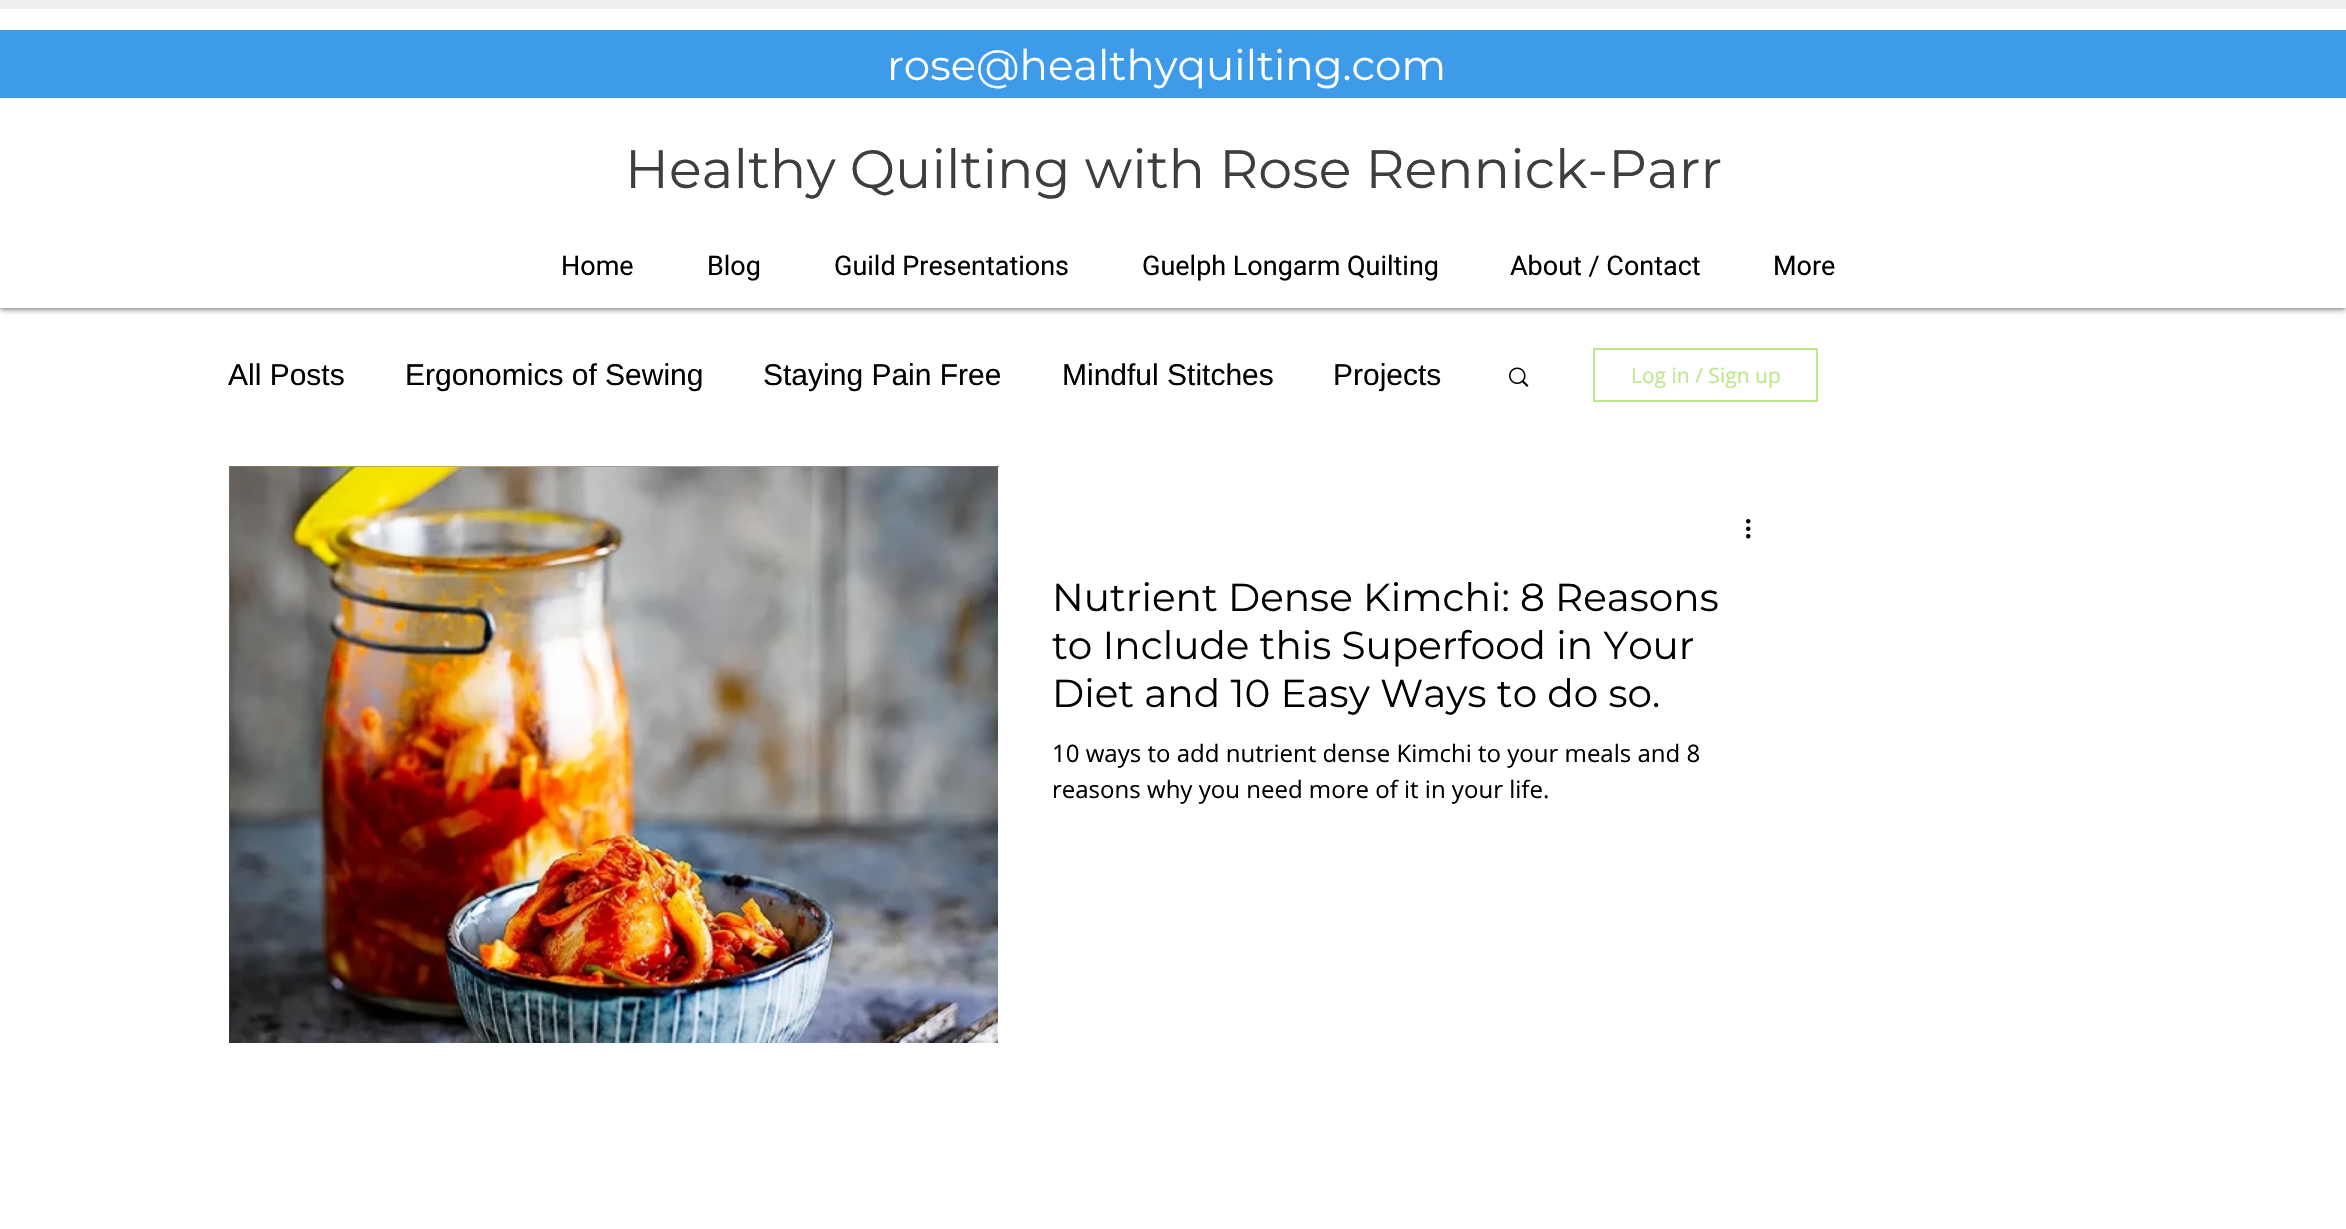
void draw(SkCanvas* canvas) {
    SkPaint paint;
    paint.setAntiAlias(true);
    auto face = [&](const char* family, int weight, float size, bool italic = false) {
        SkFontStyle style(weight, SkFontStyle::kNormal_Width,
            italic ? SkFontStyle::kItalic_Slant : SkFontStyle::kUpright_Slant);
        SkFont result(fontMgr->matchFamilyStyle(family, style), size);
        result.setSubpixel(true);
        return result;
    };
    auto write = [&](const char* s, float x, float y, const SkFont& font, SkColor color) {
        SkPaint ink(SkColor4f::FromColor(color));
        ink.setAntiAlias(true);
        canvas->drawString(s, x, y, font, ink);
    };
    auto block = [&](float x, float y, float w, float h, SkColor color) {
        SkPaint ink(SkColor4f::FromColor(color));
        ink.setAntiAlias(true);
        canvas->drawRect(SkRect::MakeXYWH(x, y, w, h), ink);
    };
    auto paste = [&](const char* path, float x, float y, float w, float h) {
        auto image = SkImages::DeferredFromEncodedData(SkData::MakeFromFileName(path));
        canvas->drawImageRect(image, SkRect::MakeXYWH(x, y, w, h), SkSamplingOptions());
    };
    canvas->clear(SK_ColorWHITE);
    paint.setColor(SkColorSetARGB(153, 0, 0, 0));
    paint.setMaskFilter(SkMaskFilter::MakeBlur(kNormal_SkBlurStyle, 3));
    canvas->drawRect(SkRect::MakeXYWH(0, 2, 2346, 307), paint);
    paint.setMaskFilter(nullptr);
    block(0, 9, 2346, 299, SK_ColorWHITE);
    block(0, 0, 2346, 9, SkColorSetRGB(239, 239, 239));
    block(0, 30, 2346, 68, SkColorSetRGB(61, 155, 233));
    auto kFont1 = face("Montserrat", 400, 42);
    write("rose@healthyquilting.com", 887, 80, kFont1, SK_ColorWHITE);
    auto kFont2 = face("Montserrat", 400, 54);
    write("Healthy Quilting with Rose Rennick-Parr", 625, 188, kFont2, SkColorSetRGB(62, 62, 62));
    auto kFont3 = face("Roboto", 400, 27);
    write("Home", 561, 275, kFont3, SK_ColorBLACK);
    write("Blog", 707, 275, kFont3, SK_ColorBLACK);
    write("Guild Presentations", 834, 275, kFont3, SK_ColorBLACK);
    write("Guelph Longarm Quilting", 1142, 275, kFont3, SK_ColorBLACK);
    write("About / Contact", 1510, 275, kFont3, SK_ColorBLACK);
    write("More", 1773, 275, kFont3, SK_ColorBLACK);
    auto kFont4 = face("Liberation Sans", 400, 30);
    write("All Posts", 228, 385, kFont4, SK_ColorBLACK);
    write("Ergonomics of Sewing", 405, 385, kFont4, SK_ColorBLACK);
    write("Staying Pain Free", 763, 385, kFont4, SK_ColorBLACK);
    write("Mindful Stitches", 1062, 385, kFont4, SK_ColorBLACK);
    write("Projects", 1333, 385, kFont4, SK_ColorBLACK);
    paste("pic1.png", 1509, 367, 20, 20);
    paint.setStyle(SkPaint::kStroke_Style);
    paint.setStrokeWidth(2);
    paint.setColor(SkColorSetRGB(191, 231, 140));
    canvas->drawRect(SkRect::MakeXYWH(1594, 349, 223, 52), paint);
    auto kFont5 = face("Open Sans", 400, 21);
    write("Log in / Sign up", 1631, 383, kFont5, SkColorSetRGB(191, 231, 140));
    paste("pic2.png", 229, 466, 770, 577);
    paste("pic3.png", 230, 467, 768, 576);
    block(998, 467, 1, 576, SK_ColorWHITE);
    paste("pic4.png", 1746, 519, 5, 20);
    auto kFont6 = face("Montserrat", 400, 39);
    write("Nutrient Dense Kimchi: 8 Reasons", 1052, 611, kFont6, SK_ColorBLACK);
    write("to Include this Superfood in Your", 1052, 659, kFont6, SK_ColorBLACK);
    write("Diet and 10 Easy Ways to do so.", 1052, 707, kFont6, SK_ColorBLACK);
    auto kFont7 = face("Open Sans", 400, 24);
    write("10 ways to add nutrient dense Kimchi to your meals and 8", 1052, 762, kFont7, SK_ColorBLACK);
    write("reasons why you need more of it in your life.", 1052, 798, kFont7, SK_ColorBLACK);
}
